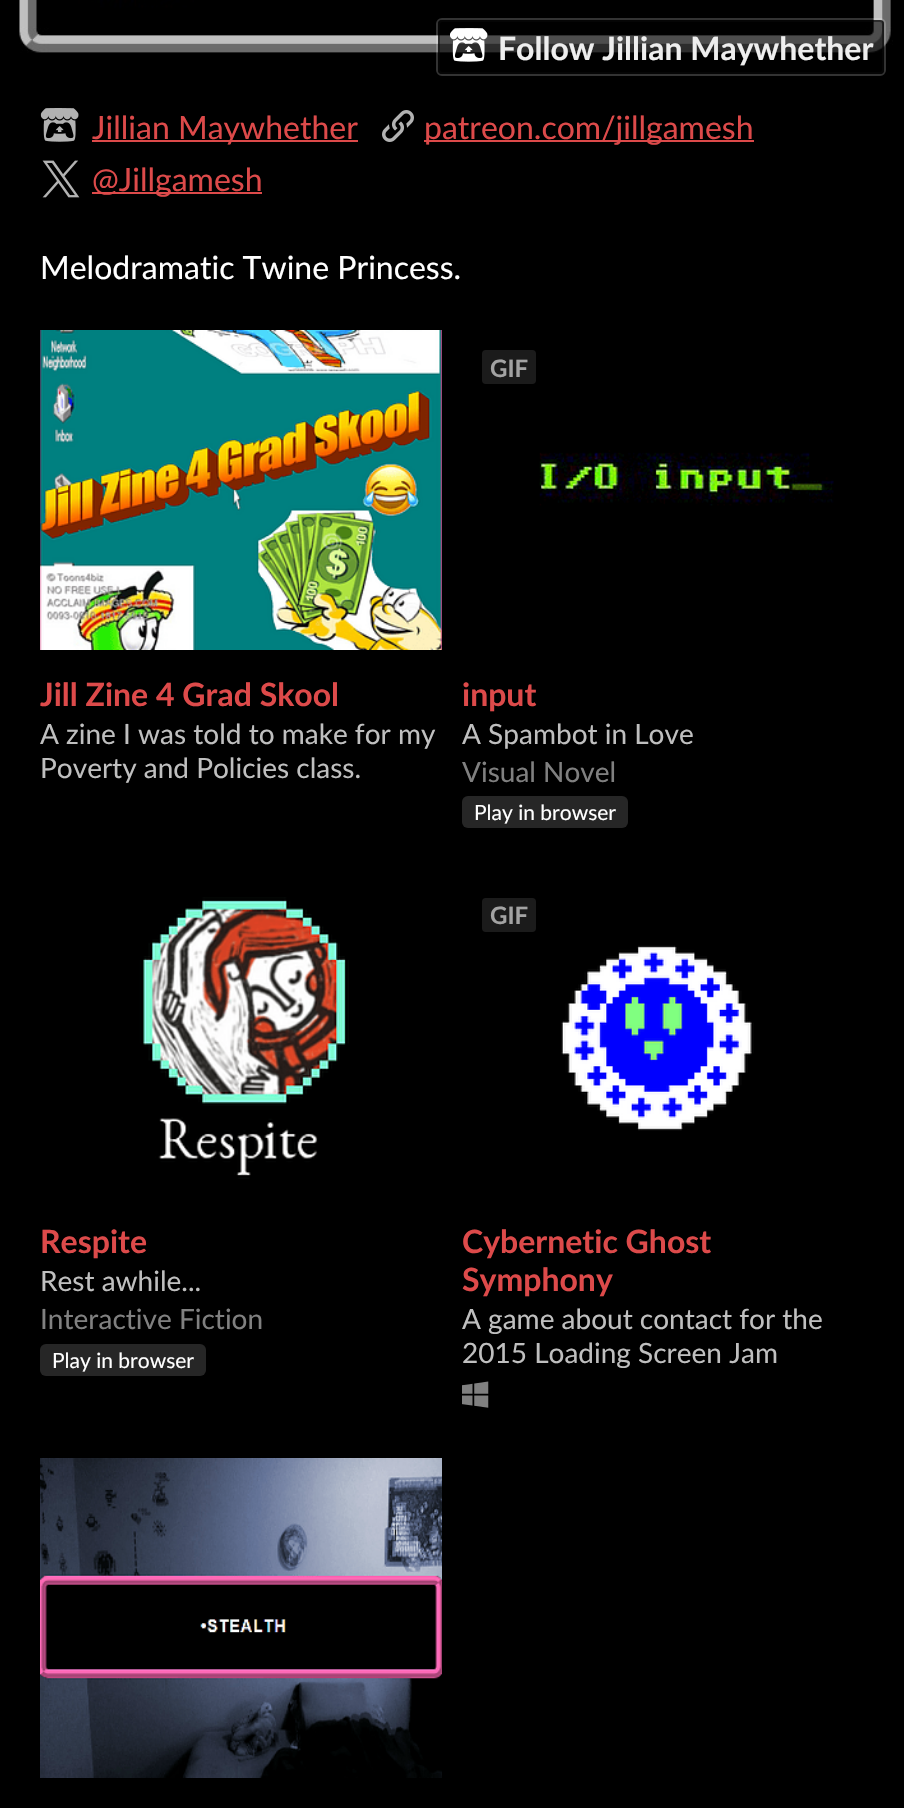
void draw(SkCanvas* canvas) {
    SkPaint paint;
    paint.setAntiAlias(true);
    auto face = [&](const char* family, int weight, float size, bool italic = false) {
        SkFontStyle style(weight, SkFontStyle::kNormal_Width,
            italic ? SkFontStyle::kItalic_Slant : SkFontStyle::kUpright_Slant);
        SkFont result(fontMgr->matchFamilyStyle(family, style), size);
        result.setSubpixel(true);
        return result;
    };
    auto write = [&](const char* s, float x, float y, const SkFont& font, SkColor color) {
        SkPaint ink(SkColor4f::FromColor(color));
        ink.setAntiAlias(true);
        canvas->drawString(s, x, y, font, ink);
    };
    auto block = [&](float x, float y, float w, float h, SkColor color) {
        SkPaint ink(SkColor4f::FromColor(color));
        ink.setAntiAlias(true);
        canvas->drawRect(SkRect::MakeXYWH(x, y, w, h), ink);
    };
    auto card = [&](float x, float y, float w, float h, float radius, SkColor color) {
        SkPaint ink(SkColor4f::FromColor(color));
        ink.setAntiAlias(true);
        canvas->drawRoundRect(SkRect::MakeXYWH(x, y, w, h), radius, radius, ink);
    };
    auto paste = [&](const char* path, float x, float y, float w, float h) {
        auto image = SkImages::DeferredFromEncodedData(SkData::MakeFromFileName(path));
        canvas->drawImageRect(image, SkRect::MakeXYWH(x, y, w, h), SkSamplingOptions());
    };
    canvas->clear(SK_ColorBLACK);
    paste("pic2.png", 19, 0, 874, 53);
    paint.setStyle(SkPaint::kStroke_Style);
    paint.setStrokeWidth(2);
    paint.setColor(SkColorSetARGB(51, 255, 255, 255));
    canvas->drawRoundRect(SkRect::MakeXYWH(437, 19, 448, 56), 5, 5, paint);
    card(438, 20, 446, 54, 4, SkColorSetARGB(153, 0, 0, 0));
    paint.setColor(SkColorSetARGB(128, 10, 10, 10));
    canvas->drawRoundRect(SkRect::MakeXYWH(439, 21, 444, 52), 3, 3, paint);
    paste("pic1.png", 450, 28, 38, 34);
    auto kFont1 = face("Lato", 700, 32);
    write("Follow Jillian Maywhether", 498, 60, kFont1, SkColorSetRGB(238, 238, 238));
    paste("pic3.png", 40, 108, 39, 34);
    block(92, 140, 266, 2, SkColorSetRGB(221, 74, 74));
    auto kFont2 = face("Lato", 400, 32);
    write("Jillian Maywhether", 92, 139, kFont2, SkColorSetRGB(221, 74, 74));
    paste("pic4.png", 382, 110, 32, 32);
    block(424, 140, 330, 2, SkColorSetRGB(221, 74, 74));
    write("patreon.com/jillgamesh", 424, 139, kFont2, SkColorSetRGB(221, 74, 74));
    paste("pic5.png", 42, 160, 38, 38);
    block(92, 192, 170, 2, SkColorSetRGB(221, 74, 74));
    write("@Jillgamesh", 92, 191, kFont2, SkColorSetRGB(221, 74, 74));
    write("Melodramatic Twine Princess.", 40, 279, kFont2, SK_ColorWHITE);
    paste("pic6.png", 40, 330, 402, 320);
    write("Jill Zine 4 Grad Skool", 40, 706, kFont1, SkColorSetRGB(221, 74, 74));
    auto kFont3 = face("Lato", 400, 28);
    write("A zine I was told to make for my", 40, 744, kFont3, SkColorSetRGB(191, 191, 191));
    write("Poverty and Policies class.", 40, 778, kFont3, SkColorSetRGB(191, 191, 191));
    card(482, 350, 54, 34, 4, SkColorSetRGB(27, 27, 27));
    auto kFont4 = face("Lato", 700, 24);
    write("GIF", 490, 377, kFont4, SkColorSetRGB(163, 163, 163));
    paste("pic7.png", 539, 450, 295, 56);
    write("input", 462, 706, kFont1, SkColorSetRGB(221, 74, 74));
    write("A Spambot in Love", 462, 744, kFont3, SkColorSetRGB(191, 191, 191));
    write("Visual Novel", 462, 782, kFont3, SkColorSetRGB(128, 128, 128));
    card(462, 796, 166, 32, 6, SkColorSetRGB(38, 38, 38));
    auto kFont5 = face("Lato", 400, 21);
    write("Play in browser", 474, 820, kFont5, SK_ColorWHITE);
    paste("pic8.png", 40, 878, 402, 320);
    write("Respite", 40, 1253, kFont1, SkColorSetRGB(221, 74, 74));
    write("Rest awhile...", 40, 1291, kFont3, SkColorSetRGB(191, 191, 191));
    write("Interactive Fiction", 40, 1329, kFont3, SkColorSetRGB(128, 128, 128));
    card(40, 1344, 166, 32, 6, SkColorSetRGB(38, 38, 38));
    write("Play in browser", 52, 1368, kFont5, SK_ColorWHITE);
    card(482, 898, 54, 34, 4, SkColorSetRGB(27, 27, 27));
    write("GIF", 490, 924, kFont4, SkColorSetRGB(163, 163, 163));
    paste("pic9.png", 561, 945, 193, 186);
    write("Cybernetic Ghost", 462, 1253, kFont1, SkColorSetRGB(221, 74, 74));
    write("Symphony", 462, 1291, kFont1, SkColorSetRGB(221, 74, 74));
    write("A game about contact for the", 462, 1329, kFont3, SkColorSetRGB(191, 191, 191));
    write("2015 Loading Screen Jam", 462, 1363, kFont3, SkColorSetRGB(191, 191, 191));
    paste("pic10.png", 462, 1381, 27, 27);
    paste("pic11.png", 40, 1458, 402, 320);
}
